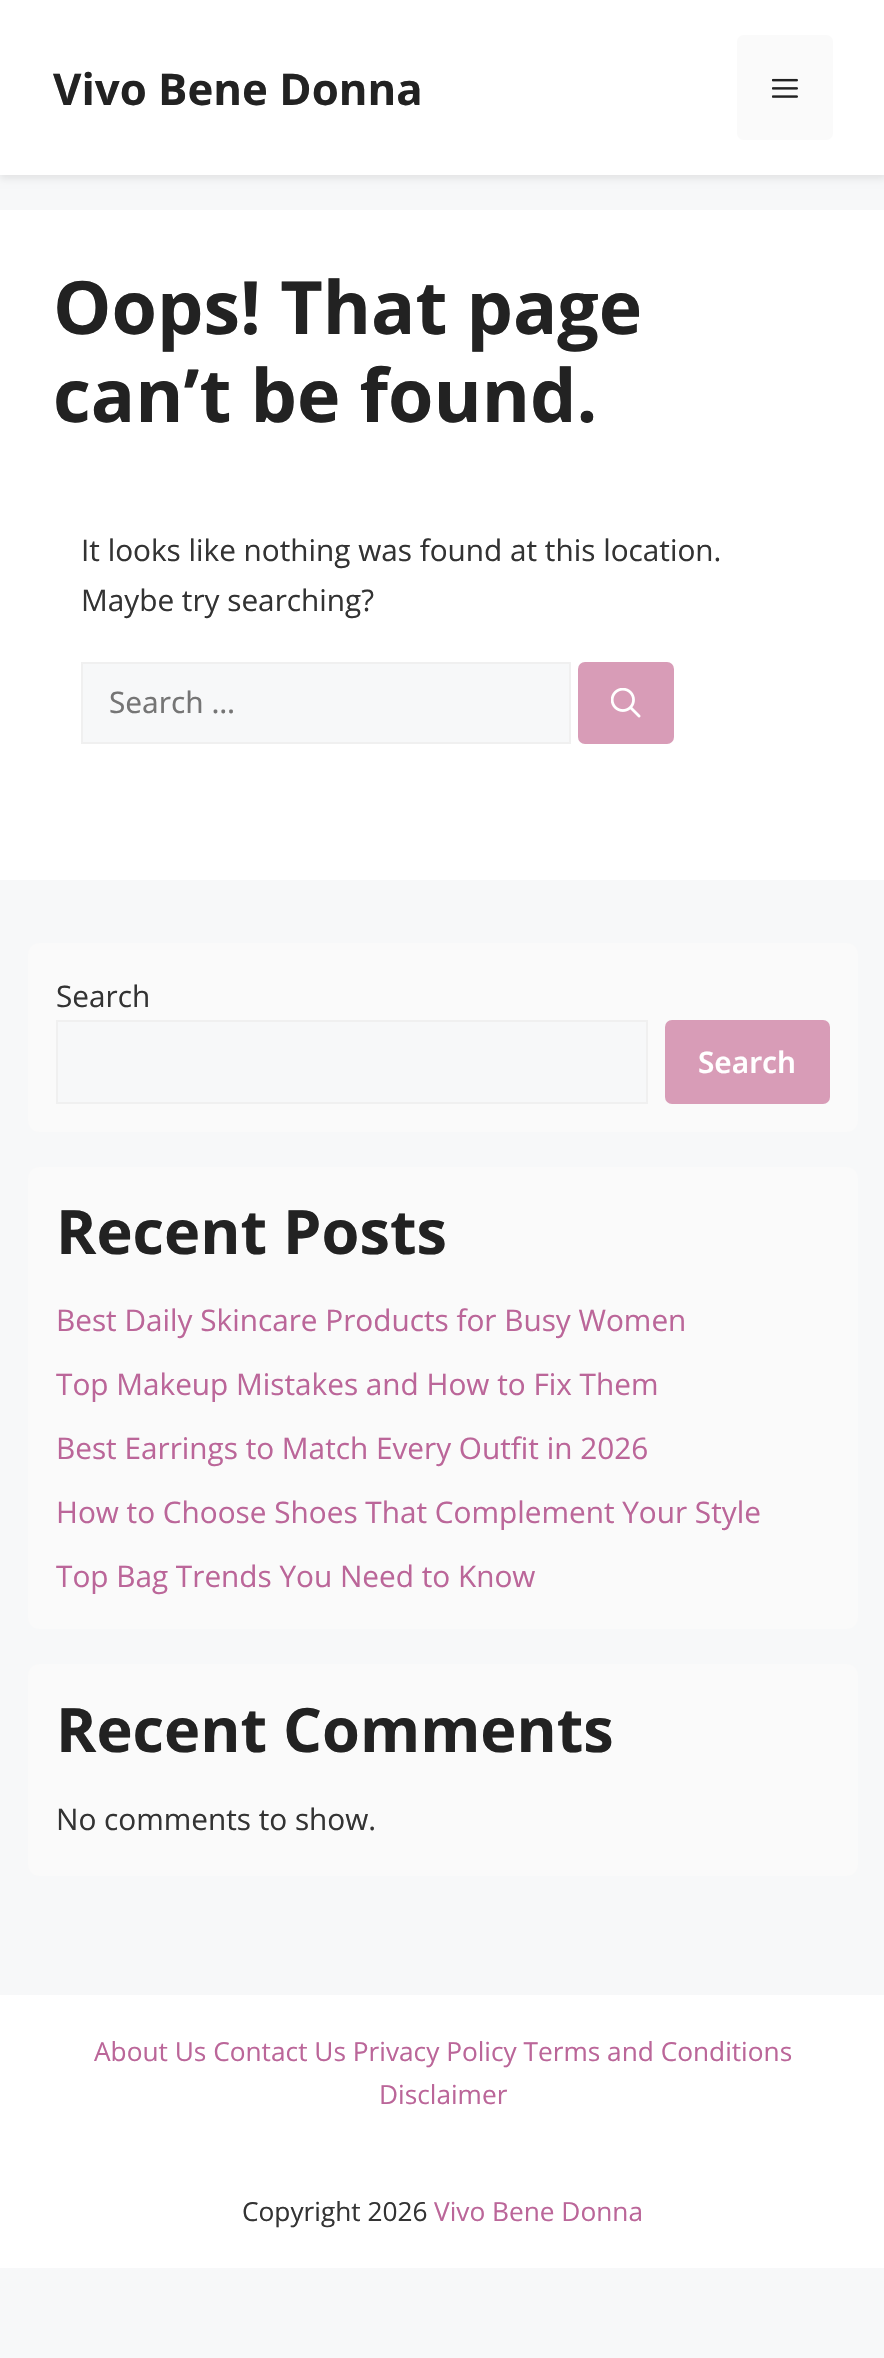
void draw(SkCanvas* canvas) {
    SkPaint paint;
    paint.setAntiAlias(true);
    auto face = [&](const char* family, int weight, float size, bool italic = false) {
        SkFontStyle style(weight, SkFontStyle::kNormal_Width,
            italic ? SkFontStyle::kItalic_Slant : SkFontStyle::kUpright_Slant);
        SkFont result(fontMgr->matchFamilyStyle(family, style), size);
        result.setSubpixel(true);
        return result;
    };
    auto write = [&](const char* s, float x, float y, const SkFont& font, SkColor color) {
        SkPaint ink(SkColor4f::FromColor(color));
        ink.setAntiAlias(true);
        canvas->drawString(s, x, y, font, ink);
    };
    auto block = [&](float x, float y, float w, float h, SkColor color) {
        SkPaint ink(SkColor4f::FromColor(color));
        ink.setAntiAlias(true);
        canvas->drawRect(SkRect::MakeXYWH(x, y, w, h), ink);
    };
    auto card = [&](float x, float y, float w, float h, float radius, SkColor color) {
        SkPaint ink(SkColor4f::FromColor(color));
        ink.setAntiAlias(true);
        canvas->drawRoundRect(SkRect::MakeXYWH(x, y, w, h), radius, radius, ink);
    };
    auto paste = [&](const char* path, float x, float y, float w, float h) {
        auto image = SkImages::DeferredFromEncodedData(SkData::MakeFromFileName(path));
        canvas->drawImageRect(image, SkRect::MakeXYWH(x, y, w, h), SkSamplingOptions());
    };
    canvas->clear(SkColorSetRGB(247, 248, 249));
    paint.setColor(SkColorSetARGB(20, 0, 0, 0));
    paint.setMaskFilter(SkMaskFilter::MakeBlur(kNormal_SkBlurStyle, 3.5f));
    canvas->drawRect(SkRect::MakeXYWH(0, 4, 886, 175), paint);
    paint.setMaskFilter(nullptr);
    block(0, 0, 884, 175, SK_ColorWHITE);
    auto kFont1 = face("Open Sans", 700, 43.75f);
    write("Vivo Bene Donna", 53, 105, kFont1, SkColorSetRGB(34, 34, 34));
    card(737, 35, 96, 105, 7, SkColorSetRGB(250, 250, 250));
    paste("pic1.png", 772, 78, 26, 20);
    block(0, 210, 884, 670, SK_ColorWHITE);
    auto kFont2 = face("Open Sans", 700, 73.5f);
    write("Oops! That page", 53, 334, kFont2, SkColorSetRGB(34, 34, 34));
    write("can’t be found.", 53, 422, kFont2, SkColorSetRGB(34, 34, 34));
    auto kFont3 = face("Open Sans", 400, 29.75f);
    write("It looks like nothing was found at this location.", 81, 561, kFont3, SkColorSetRGB(51, 51, 51));
    write("Maybe try searching?", 81, 611, kFont3, SkColorSetRGB(51, 51, 51));
    paint.setColor(SkColorSetRGB(247, 248, 249));
    canvas->drawRect(SkRect::MakeXYWH(82, 663, 488, 80), paint);
    paint.setStyle(SkPaint::kStroke_Style);
    paint.setStrokeWidth(2);
    paint.setColor(SkColorSetRGB(240, 240, 240));
    canvas->drawRect(SkRect::MakeXYWH(82, 663, 488, 80), paint);
    auto kFont4 = face("Noto Sans", 400, 29.75f);
    write("Search …", 109, 713, kFont4, SkColorSetRGB(117, 117, 117));
    card(578, 662, 96, 82, 7, SkColorSetRGB(216, 156, 183));
    paste("pic2.png", 611, 688, 30, 30);
    card(28, 943, 830, 189, 11, SkColorSetRGB(250, 250, 250));
    write("Search", 56, 1007, kFont3, SkColorSetRGB(51, 51, 51));
    paint.setStyle(SkPaint::kFill_Style);
    paint.setColor(SkColorSetRGB(247, 248, 249));
    canvas->drawRect(SkRect::MakeXYWH(57, 1021, 590, 82), paint);
    paint.setStyle(SkPaint::kStroke_Style);
    paint.setColor(SkColorSetRGB(240, 240, 240));
    canvas->drawRect(SkRect::MakeXYWH(57, 1021, 590, 82), paint);
    card(665, 1020, 165, 84, 7, SkColorSetRGB(216, 156, 183));
    auto kFont5 = face("Noto Sans", 600, 29.75f);
    write("Search", 698, 1073, kFont5, SK_ColorWHITE);
    card(28, 1167, 830, 462, 11, SkColorSetRGB(250, 250, 250));
    auto kFont6 = face("Open Sans", 700, 61.25f);
    write("Recent Posts", 56, 1254, kFont6, SkColorSetRGB(34, 34, 34));
    write("Best Daily Skincare Products for Busy Women", 56, 1331, kFont3, SkColorSetRGB(187, 102, 153));
    write("Top Makeup Mistakes and How to Fix Them", 56, 1395, kFont3, SkColorSetRGB(187, 102, 153));
    write("Best Earrings to Match Every Outfit in 2026", 56, 1459, kFont3, SkColorSetRGB(187, 102, 153));
    write("How to Choose Shoes That Complement Your Style", 56, 1523, kFont3, SkColorSetRGB(187, 102, 153));
    write("Top Bag Trends You Need to Know", 56, 1587, kFont3, SkColorSetRGB(187, 102, 153));
    card(28, 1664, 830, 212, 11, SkColorSetRGB(250, 250, 250));
    write("Recent Comments", 56, 1752, kFont6, SkColorSetRGB(34, 34, 34));
    write("No comments to show.", 56, 1830, kFont3, SkColorSetRGB(51, 51, 51));
    block(0, 1995, 884, 273, SK_ColorWHITE);
    auto kFont7 = face("Open Sans", 400, 26.25f);
    write("About Us Contact Us Privacy Policy Terms and Conditions", 94, 2061, kFont7, SkColorSetRGB(187, 102, 153));
    write("Disclaimer", 379, 2104, kFont7, SkColorSetRGB(187, 102, 153));
    write("Copyright 2026", 242, 2221, kFont7, SkColorSetRGB(51, 51, 51));
    write("Vivo Bene Donna", 434, 2221, kFont7, SkColorSetRGB(187, 102, 153));
}
